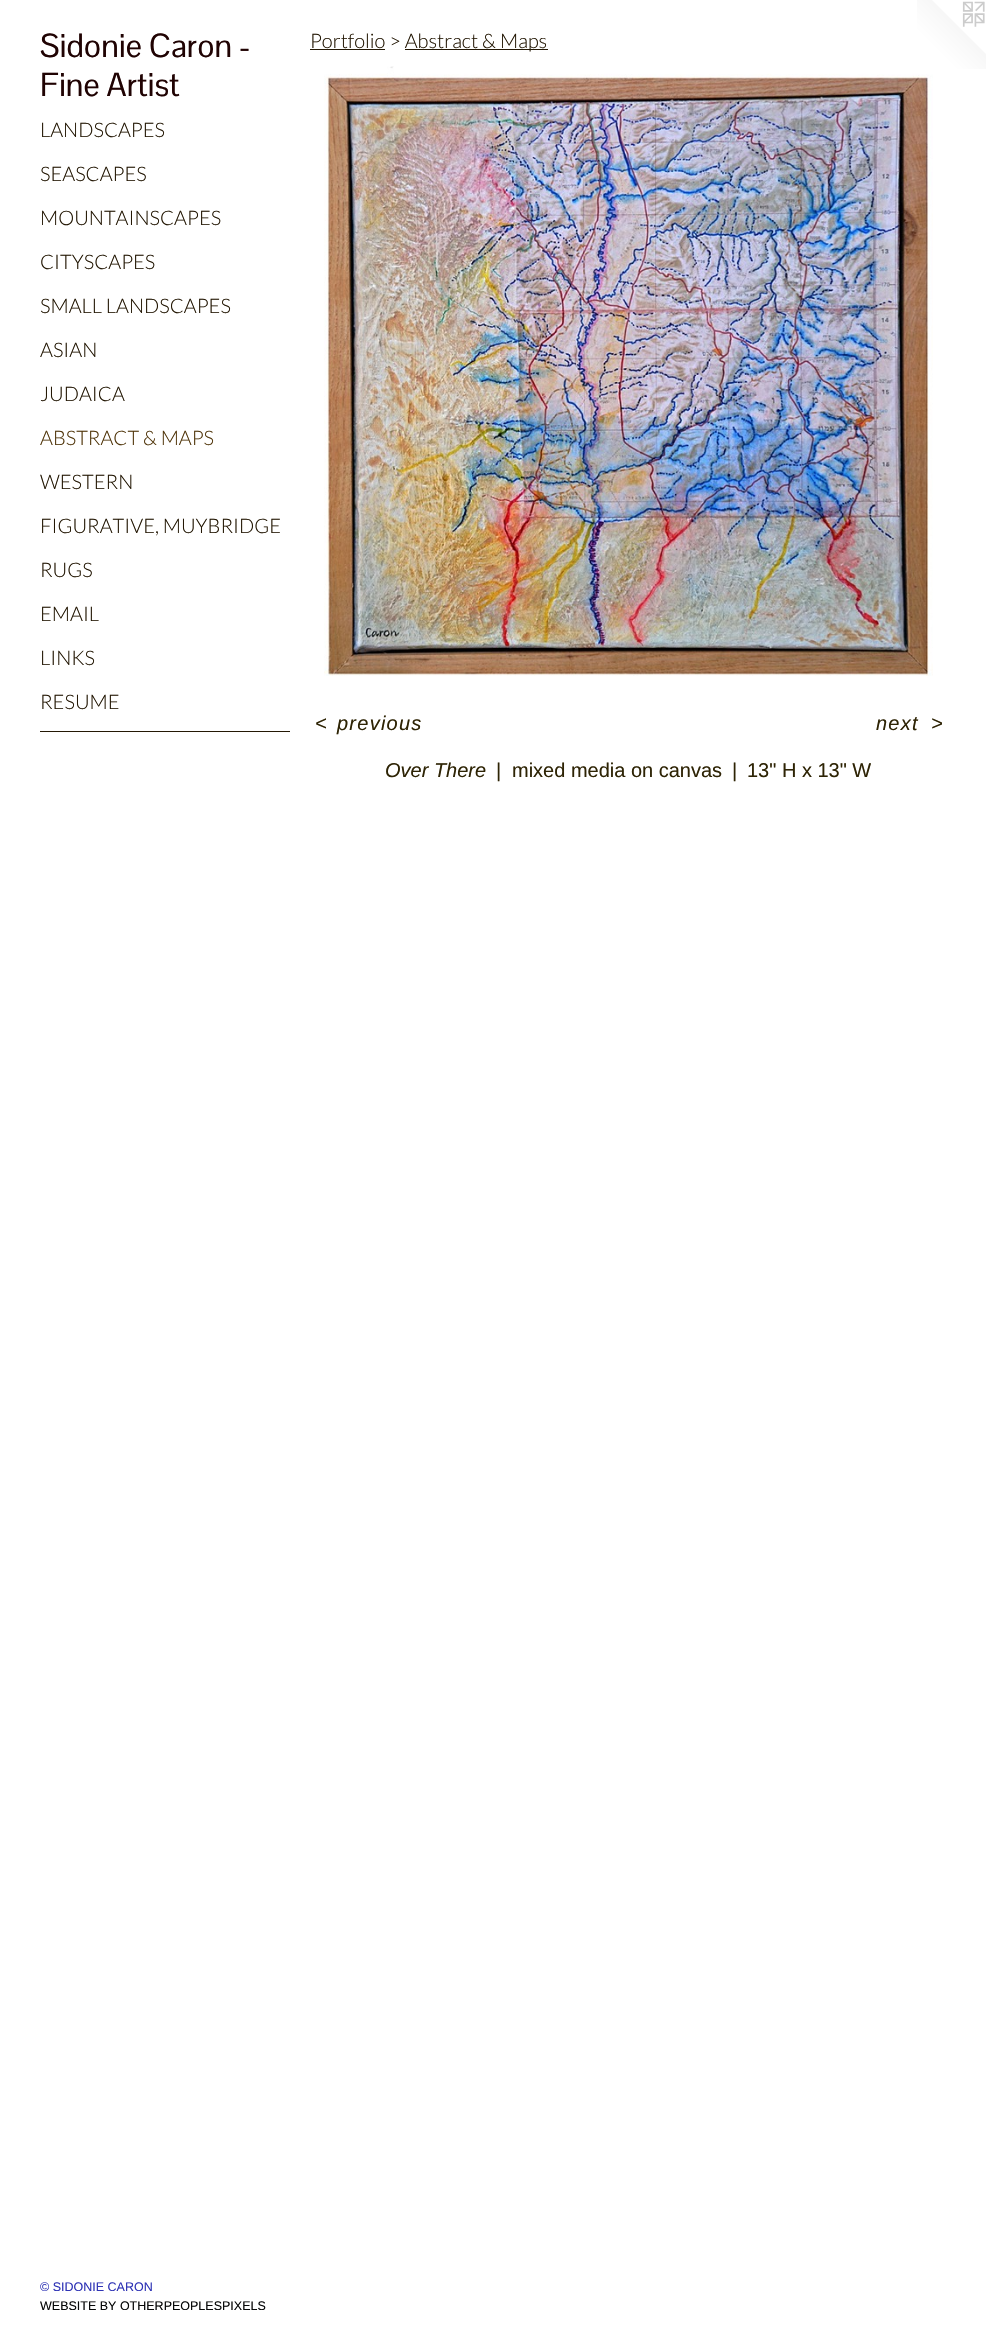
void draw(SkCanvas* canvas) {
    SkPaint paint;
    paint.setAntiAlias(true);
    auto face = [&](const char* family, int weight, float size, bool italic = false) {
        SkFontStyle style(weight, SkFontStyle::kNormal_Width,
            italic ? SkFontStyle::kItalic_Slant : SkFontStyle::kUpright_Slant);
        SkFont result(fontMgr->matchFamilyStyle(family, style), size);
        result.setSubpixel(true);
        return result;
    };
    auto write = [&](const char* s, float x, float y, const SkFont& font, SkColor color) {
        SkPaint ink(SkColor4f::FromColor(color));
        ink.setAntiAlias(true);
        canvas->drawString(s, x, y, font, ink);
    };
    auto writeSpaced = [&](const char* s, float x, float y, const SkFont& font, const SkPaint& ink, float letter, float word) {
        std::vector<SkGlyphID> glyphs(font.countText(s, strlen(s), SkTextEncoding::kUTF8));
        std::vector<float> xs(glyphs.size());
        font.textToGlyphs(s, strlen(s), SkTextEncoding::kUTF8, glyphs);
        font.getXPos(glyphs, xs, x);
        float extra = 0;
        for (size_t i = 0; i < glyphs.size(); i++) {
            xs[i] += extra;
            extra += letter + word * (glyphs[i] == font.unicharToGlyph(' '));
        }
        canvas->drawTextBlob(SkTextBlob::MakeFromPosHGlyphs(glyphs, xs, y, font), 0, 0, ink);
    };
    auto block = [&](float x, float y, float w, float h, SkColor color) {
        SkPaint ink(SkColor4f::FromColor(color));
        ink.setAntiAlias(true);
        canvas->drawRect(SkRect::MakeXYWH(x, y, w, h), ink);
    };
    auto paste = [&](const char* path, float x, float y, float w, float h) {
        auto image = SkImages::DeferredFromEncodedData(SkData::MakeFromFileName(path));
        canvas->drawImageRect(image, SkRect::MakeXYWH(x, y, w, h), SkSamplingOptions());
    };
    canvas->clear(SK_ColorWHITE);
    auto kFont1 = face("Pontano Sans", 400, 32.5f);
    write("Sidonie Caron -", 40, 57, kFont1, SkColorSetRGB(32, 3, 3));
    write("Fine Artist", 40, 96, kFont1, SkColorSetRGB(32, 3, 3));
    auto kFont2 = face("Lato", 300, 20);
    write("LANDSCAPES", 40, 137, kFont2, SkColorSetRGB(36, 24, 5));
    write("SEASCAPES", 40, 181, kFont2, SkColorSetRGB(36, 24, 5));
    write("MOUNTAINSCAPES", 40, 225, kFont2, SkColorSetRGB(36, 24, 5));
    write("CITYSCAPES", 40, 269, kFont2, SkColorSetRGB(36, 24, 5));
    write("SMALL LANDSCAPES", 40, 313, kFont2, SkColorSetRGB(36, 24, 5));
    write("ASIAN", 40, 357, kFont2, SkColorSetRGB(36, 24, 5));
    write("JUDAICA", 40, 401, kFont2, SkColorSetRGB(36, 24, 5));
    write("ABSTRACT & MAPS", 40, 445, kFont2, SkColorSetRGB(81, 54, 11));
    write("WESTERN", 40, 489, kFont2, SkColorSetRGB(36, 24, 5));
    write("FIGURATIVE, MUYBRIDGE", 40, 533, kFont2, SkColorSetRGB(36, 24, 5));
    write("RUGS", 40, 577, kFont2, SkColorSetRGB(36, 24, 5));
    write("EMAIL", 40, 621, kFont2, SkColorSetRGB(36, 24, 5));
    write("LINKS", 40, 665, kFont2, SkColorSetRGB(36, 24, 5));
    write("RESUME", 40, 709, kFont2, SkColorSetRGB(36, 24, 5));
    block(40, 731, 250, 1, SkColorSetRGB(36, 24, 5));
    auto kFont3 = face("Liberation Sans", 400, 12.5f);
    write("© SIDONIE CARON", 40, 2291, kFont3, SkColorSetRGB(47, 52, 182));
    write("WEBSITE BY OTHERPEOPLESPIXELS", 40, 2310, kFont3, SkColorSetRGB(7, 8, 8));
    write("Portfolio > Abstract &", 310, 48, kFont2, SkColorSetRGB(36, 24, 5));
    block(310, 49, 75, 1, SkColorSetRGB(36, 24, 5));
    block(405, 49, 143, 1, SkColorSetRGB(36, 24, 5));
    write("Maps", 500, 48, kFont2, SkColorSetRGB(36, 24, 5));
    paste("pic2.png", 917, 0, 69, 69);
    paste("pic1.png", 324, 66, 609, 610);
    auto kFont4 = face("Liberation Sans", 400, 20, true);
    paint.setColor(SkColorSetRGB(46, 36, 5));
    writeSpaced("<", 315, 730, kFont4, paint, 1.25f, 0);
    writeSpaced("previous", 337, 730, kFont4, paint, 1.25f, 0);
    writeSpaced("next", 876, 730, kFont4, paint, 1.25f, 0);
    writeSpaced(">", 931, 730, kFont4, paint, 1.25f, 0);
    write("Over There", 385, 777, kFont4, SkColorSetRGB(46, 36, 5));
    auto kFont5 = face("Liberation Sans", 400, 20);
    write("|", 496, 777, kFont5, SkColorSetRGB(46, 36, 5));
    write("mixed media on canvas", 512, 777, kFont5, SkColorSetRGB(46, 36, 5));
    write("|", 732, 777, kFont5, SkColorSetRGB(46, 36, 5));
    write("13\" H x 13\" W", 747, 777, kFont5, SkColorSetRGB(46, 36, 5));
}
